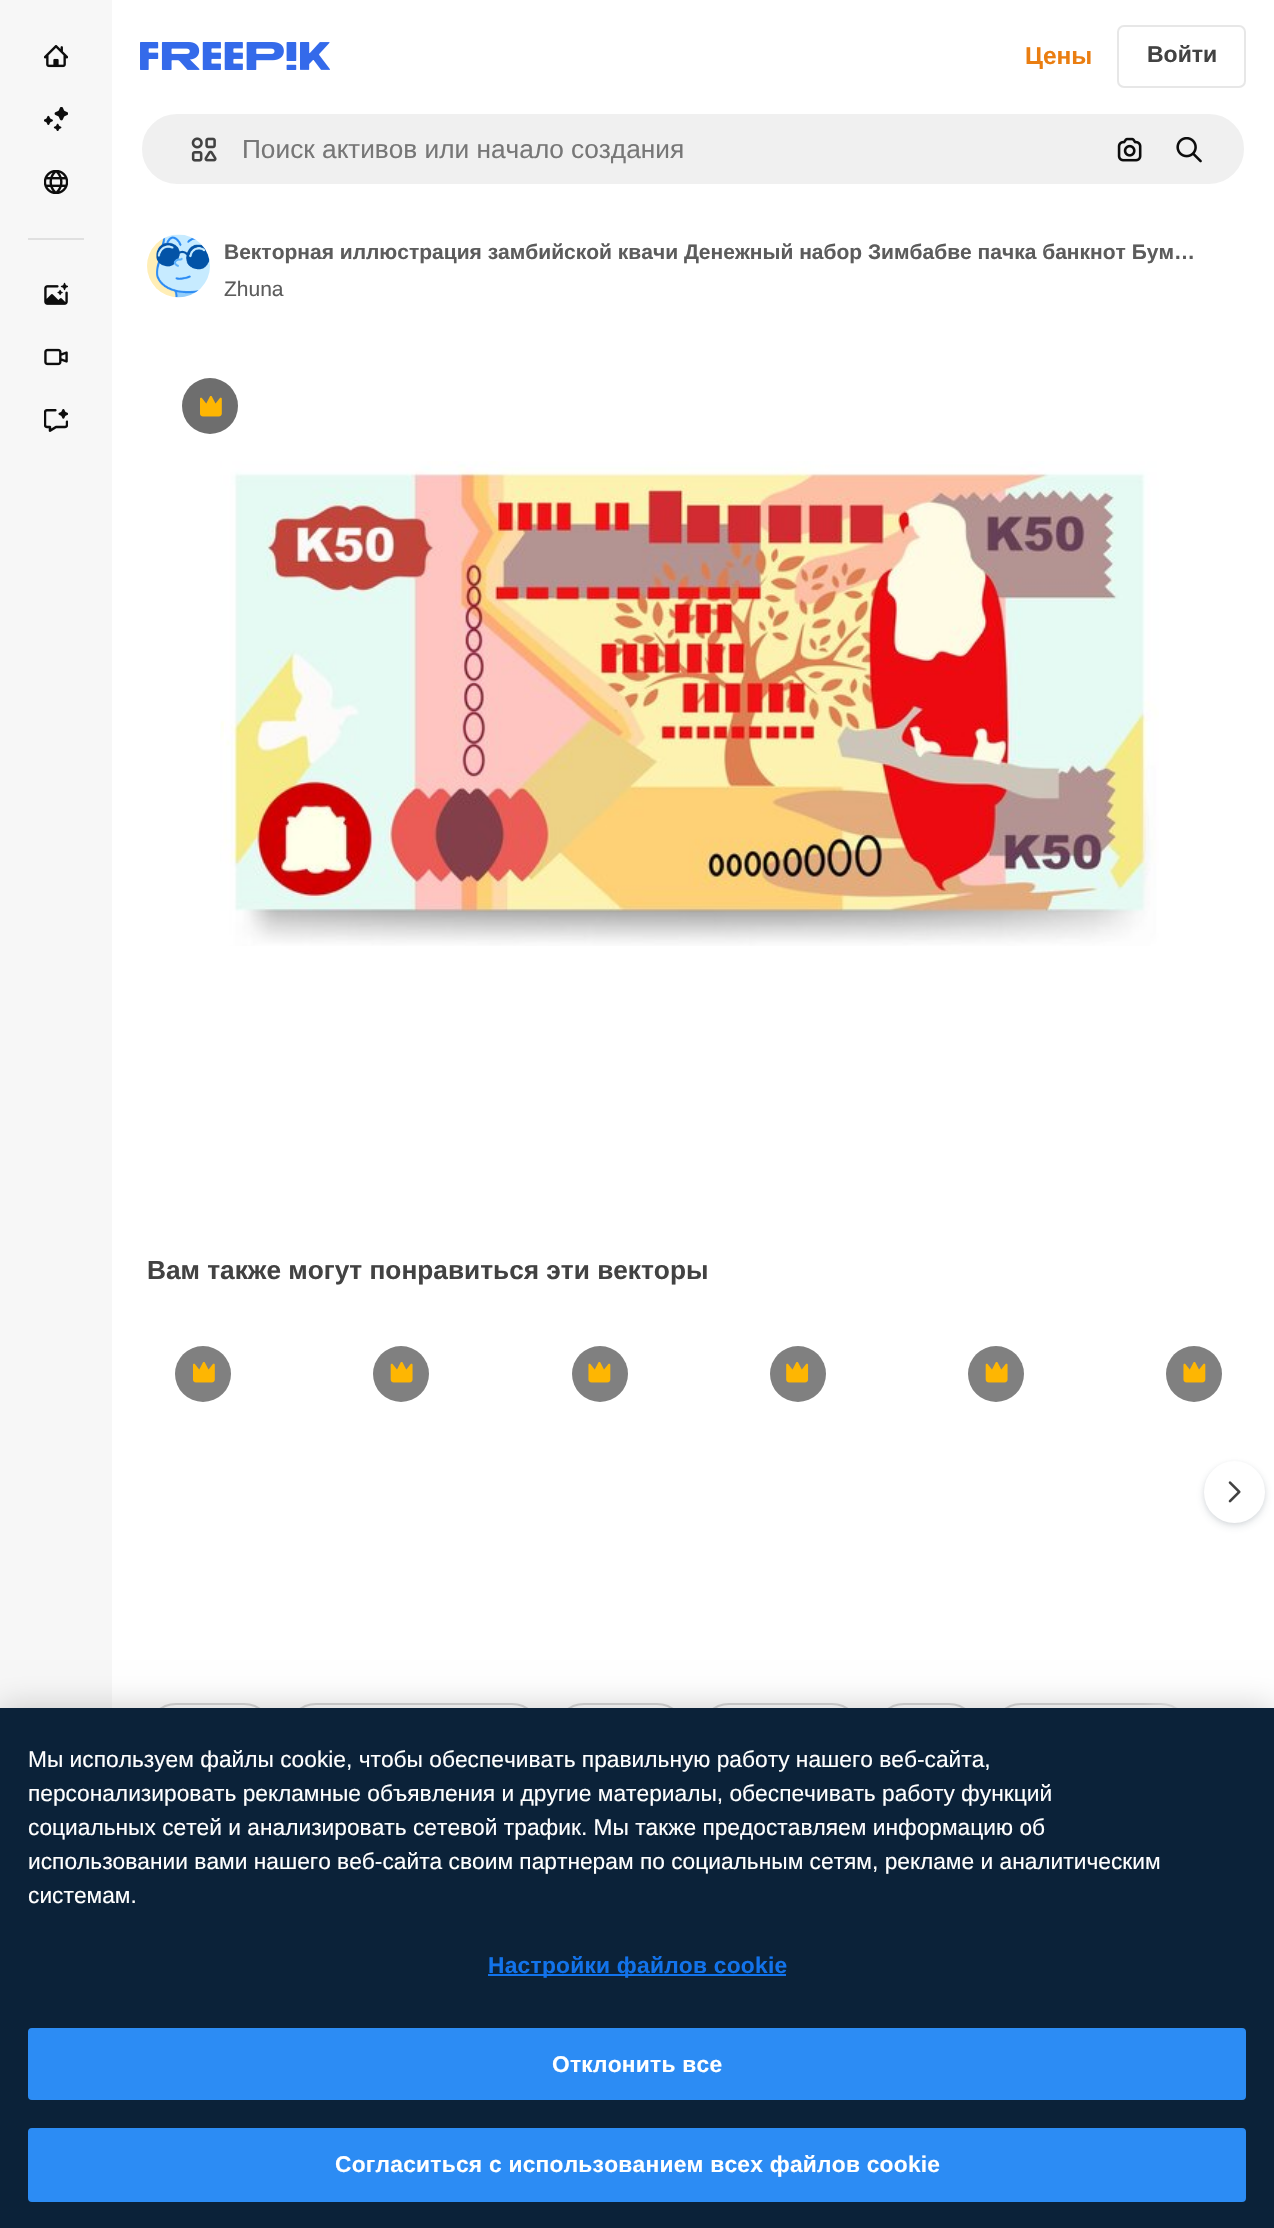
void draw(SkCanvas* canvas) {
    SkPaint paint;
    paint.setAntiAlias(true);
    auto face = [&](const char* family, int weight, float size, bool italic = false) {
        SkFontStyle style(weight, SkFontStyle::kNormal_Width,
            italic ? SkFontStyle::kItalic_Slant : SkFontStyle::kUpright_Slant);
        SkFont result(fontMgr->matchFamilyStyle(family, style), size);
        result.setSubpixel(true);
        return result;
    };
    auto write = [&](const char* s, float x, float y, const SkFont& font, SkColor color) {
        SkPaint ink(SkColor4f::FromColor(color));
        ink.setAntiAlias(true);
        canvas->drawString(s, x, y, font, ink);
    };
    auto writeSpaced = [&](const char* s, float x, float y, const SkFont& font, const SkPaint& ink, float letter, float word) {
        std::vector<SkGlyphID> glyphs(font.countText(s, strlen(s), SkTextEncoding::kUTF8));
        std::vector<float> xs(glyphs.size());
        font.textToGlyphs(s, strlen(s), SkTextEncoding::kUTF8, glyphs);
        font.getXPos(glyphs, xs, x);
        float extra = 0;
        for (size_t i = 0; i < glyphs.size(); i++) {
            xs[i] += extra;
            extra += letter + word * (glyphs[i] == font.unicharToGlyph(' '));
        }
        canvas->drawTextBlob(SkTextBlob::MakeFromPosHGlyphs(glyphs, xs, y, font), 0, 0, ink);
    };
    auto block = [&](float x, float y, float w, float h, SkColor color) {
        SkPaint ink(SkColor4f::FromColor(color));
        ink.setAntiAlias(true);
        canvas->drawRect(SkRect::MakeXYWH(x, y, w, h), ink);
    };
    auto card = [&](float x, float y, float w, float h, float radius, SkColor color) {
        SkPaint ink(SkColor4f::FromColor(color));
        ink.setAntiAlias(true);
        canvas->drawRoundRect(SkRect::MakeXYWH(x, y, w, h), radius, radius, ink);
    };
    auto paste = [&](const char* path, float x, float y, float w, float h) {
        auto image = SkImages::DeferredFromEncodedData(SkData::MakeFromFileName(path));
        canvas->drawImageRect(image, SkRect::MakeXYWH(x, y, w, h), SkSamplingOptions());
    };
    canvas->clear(SK_ColorWHITE);
    block(0, 0, 112, 1708, SkColorSetRGB(247, 247, 247));
    paste("pic1.png", 44, 45, 24, 23);
    paste("pic2.png", 44, 107, 24, 24);
    paste("pic3.png", 44, 170, 24, 24);
    block(28, 238, 56, 2, SkColorSetRGB(224, 224, 224));
    paste("pic4.png", 44, 282, 24, 23);
    paste("pic5.png", 44, 348, 24, 18);
    paste("pic6.png", 44, 409, 24, 23);
    paste("pic7.png", 140, 42, 190, 28);
    auto kFont1 = face("Liberation Sans", 700, 24.5f);
    write("Цены", 1025, 64, kFont1, SkColorSetRGB(234, 126, 17));
    paint.setStyle(SkPaint::kStroke_Style);
    paint.setStrokeWidth(2);
    paint.setColor(SkColorSetRGB(231, 231, 231));
    canvas->drawRoundRect(SkRect::MakeXYWH(1118, 26, 127, 61), 6, 6, paint);
    auto kFont2 = face("Liberation Sans", 700, 23);
    write("Войти", 1147, 62, kFont2, SkColorSetRGB(66, 66, 66));
    paint.setStyle(SkPaint::kFill_Style);
    paint.setColor(SkColorSetRGB(240, 240, 240));
    canvas->drawRoundRect(SkRect::MakeXYWH(141, 113, 1104, 72), 36, 36, paint);
    paint.setStyle(SkPaint::kStroke_Style);
    paint.setColor(SK_ColorWHITE);
    canvas->drawRoundRect(SkRect::MakeXYWH(141, 113, 1104, 72), 36, 36, paint);
    paste("pic8.png", 191, 137, 26, 25);
    auto kFont3 = face("Liberation Sans", 400, 26.25f);
    write("Поиск активов или начало создания", 242, 158, kFont3, SkColorSetRGB(119, 119, 119));
    paste("pic9.png", 1117, 137, 25, 25);
    paste("pic10.png", 1176, 137, 26, 26);
    paste("pic11.png", 147, 234, 63, 64);
    auto kFont4 = face("Liberation Sans", 700, 21);
    write("Векторная иллюстрация замбийской квачи Денежный набор Зимбабве пачка банкнот Бум…", 224, 259, kFont4, SkColorSetRGB(92, 92, 92));
    auto kFont5 = face("Liberation Sans", 400, 21);
    write("Zhuna", 224, 296, kFont5, SkColorSetRGB(92, 92, 92));
    paint.setStyle(SkPaint::kFill_Style);
    paint.setColor(SkColorSetRGB(110, 110, 110));
    canvas->drawCircle(210, 406, 28, paint);
    paste("pic12.png", 200, 396, 22, 21);
    paste("pic13.png", 220, 461, 939, 485);
    auto kFont6 = face("Liberation Sans", 700, 26.25f);
    write("Вам также могут понравиться эти векторы", 147, 1279, kFont6, SkColorSetRGB(66, 66, 66));
    paint.setColor(SkColorSetRGB(128, 128, 128));
    canvas->drawCircle(203, 1374, 28, paint);
    paste("pic14.png", 193, 1362, 22, 21);
    canvas->drawCircle(401, 1374, 28, paint);
    paste("pic15.png", 390, 1362, 23, 21);
    canvas->drawCircle(600, 1374, 28, paint);
    paste("pic16.png", 588, 1362, 23, 21);
    canvas->drawCircle(798, 1374, 28, paint);
    paste("pic17.png", 786, 1362, 23, 21);
    canvas->drawCircle(996, 1374, 28, paint);
    paste("pic15.png", 985, 1362, 23, 21);
    canvas->drawCircle(1194, 1374, 28, paint);
    paste("pic16.png", 1183, 1362, 23, 21);
    paint.setColor(SkColorSetARGB(38, 55, 73, 87));
    paint.setMaskFilter(SkMaskFilter::MakeBlur(kNormal_SkBlurStyle, 4.5f));
    canvas->drawRoundRect(SkRect::MakeXYWH(1204, 1465, 61, 61), 30.5f, 30.5f, paint);
    paint.setMaskFilter(nullptr);
    paint.setColor(SkColorSetARGB(26, 55, 73, 87));
    paint.setMaskFilter(SkMaskFilter::MakeBlur(kNormal_SkBlurStyle, 2));
    canvas->drawRoundRect(SkRect::MakeXYWH(1204, 1463, 61, 61), 30.5f, 30.5f, paint);
    paint.setMaskFilter(nullptr);
    card(1204, 1461, 61, 62, 30.5f, SK_ColorWHITE);
    paste("pic18.png", 1228, 1481, 13, 22);
    paint.setStyle(SkPaint::kStroke_Style);
    paint.setColor(SkColorSetRGB(216, 216, 216));
    canvas->drawRoundRect(SkRect::MakeXYWH(148, 1704, 124, 56), 28, 28, paint);
    canvas->drawRoundRect(SkRect::MakeXYWH(288, 1704, 252, 56), 28, 28, paint);
    canvas->drawRoundRect(SkRect::MakeXYWH(556, 1704, 129, 56), 28, 28, paint);
    canvas->drawRoundRect(SkRect::MakeXYWH(701, 1704, 159, 56), 28, 28, paint);
    canvas->drawRoundRect(SkRect::MakeXYWH(876, 1704, 101, 56), 28, 28, paint);
    canvas->drawRoundRect(SkRect::MakeXYWH(993, 1704, 196, 56), 28, 28, paint);
    paint.setStyle(SkPaint::kFill_Style);
    {
        const SkColor colors[] = {SK_ColorWHITE, SkColorSetARGB(0, 255, 255, 255)};
        const float stops[] = {0, 1};
        const SkPoint ends[] = {{1204, 1732}, {1143, 1732}};
        paint.setShader(SkGradientShader::MakeLinear(ends, colors, stops, 2, SkTileMode::kClamp));
        paint.setAlpha(255);
    }
    canvas->drawRect(SkRect::MakeXYWH(1144, 1703, 33, 5), paint);
    paint.setShader(nullptr);
    paint.setColor(SkColorSetARGB(51, 0, 0, 0));
    paint.setMaskFilter(SkMaskFilter::MakeBlur(kNormal_SkBlurStyle, 16));
    canvas->drawRect(SkRect::MakeXYWH(0, 1708, 1274, 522), paint);
    paint.setMaskFilter(nullptr);
    block(0, 1708, 1274, 520, SkColorSetRGB(11, 34, 57));
    auto kFont7 = face("Liberation Sans", 400, 22.75f);
    write("Мы используем файлы cookie, чтобы обеспечивать правильную работу нашего веб-сайта,", 28, 1767, kFont7, SK_ColorWHITE);
    write("персонализировать рекламные объявления и другие материалы, обеспечивать работу функций", 28, 1801, kFont7, SK_ColorWHITE);
    write("социальных сетей и анализировать сетевой трафик. Мы также предоставляем информацию об", 28, 1835, kFont7, SK_ColorWHITE);
    write("использовании вами нашего веб-сайта своим партнерам по социальным сетям, рекламе и аналитическим", 28, 1869, kFont7, SK_ColorWHITE);
    write("системам.", 28, 1903, kFont7, SK_ColorWHITE);
    block(488, 1974, 298, 2, SkColorSetRGB(18, 115, 235));
    auto kFont8 = face("Liberation Sans", 700, 22.75f);
    paint.setColor(SkColorSetRGB(18, 115, 235));
    writeSpaced("Настройки файлов cookie", 488, 1973, kFont8, paint, 0.25f, 0);
    paint.setColor(SkColorSetRGB(44, 140, 244));
    canvas->drawRoundRect(SkRect::MakeXYWH(29, 2029, 1216, 70), 3, 3, paint);
    paint.setStyle(SkPaint::kStroke_Style);
    canvas->drawRoundRect(SkRect::MakeXYWH(29, 2029, 1216, 70), 3, 3, paint);
    paint.setStyle(SkPaint::kFill_Style);
    paint.setColor(SK_ColorWHITE);
    writeSpaced("Отклонить все", 552, 2072, kFont8, paint, 0.25f, 0);
    paint.setColor(SkColorSetRGB(44, 140, 244));
    canvas->drawRoundRect(SkRect::MakeXYWH(29, 2129, 1216, 72), 3, 3, paint);
    paint.setStyle(SkPaint::kStroke_Style);
    canvas->drawRoundRect(SkRect::MakeXYWH(29, 2129, 1216, 72), 3, 3, paint);
    paint.setStyle(SkPaint::kFill_Style);
    paint.setColor(SK_ColorWHITE);
    writeSpaced("Согласиться с использованием всех файлов cookie", 335, 2172, kFont8, paint, 0.25f, 0);
}
